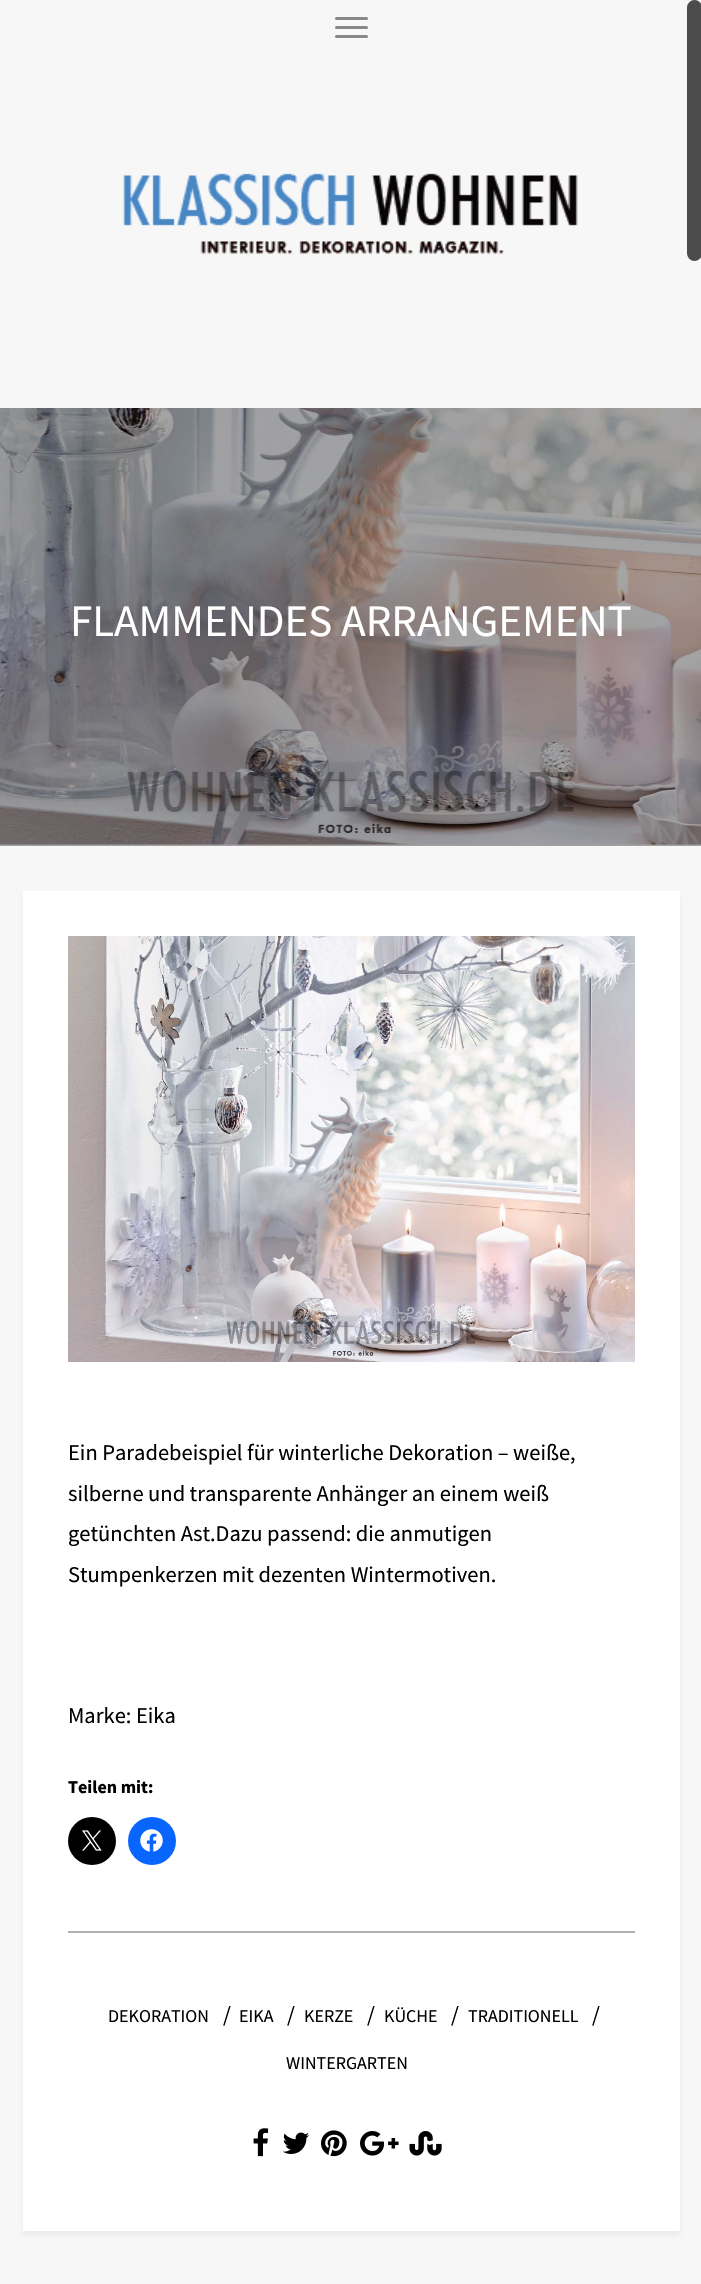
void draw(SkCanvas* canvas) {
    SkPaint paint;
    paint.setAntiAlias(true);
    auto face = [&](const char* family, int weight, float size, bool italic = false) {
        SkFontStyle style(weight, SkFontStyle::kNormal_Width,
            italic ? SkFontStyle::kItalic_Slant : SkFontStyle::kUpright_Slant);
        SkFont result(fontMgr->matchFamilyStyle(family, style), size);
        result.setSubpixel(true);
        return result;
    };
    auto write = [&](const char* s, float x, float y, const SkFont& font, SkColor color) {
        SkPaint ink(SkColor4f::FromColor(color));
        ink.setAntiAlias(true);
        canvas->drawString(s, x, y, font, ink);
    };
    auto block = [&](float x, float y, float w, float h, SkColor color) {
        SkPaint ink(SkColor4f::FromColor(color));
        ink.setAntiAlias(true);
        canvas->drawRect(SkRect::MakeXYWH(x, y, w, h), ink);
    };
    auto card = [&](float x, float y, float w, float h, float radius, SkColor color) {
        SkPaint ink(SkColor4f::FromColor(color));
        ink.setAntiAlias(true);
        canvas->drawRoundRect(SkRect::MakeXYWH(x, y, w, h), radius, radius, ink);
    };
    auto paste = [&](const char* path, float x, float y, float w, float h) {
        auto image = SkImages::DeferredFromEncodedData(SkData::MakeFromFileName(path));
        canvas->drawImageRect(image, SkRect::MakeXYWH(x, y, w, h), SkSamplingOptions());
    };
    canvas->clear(SkColorSetRGB(247, 247, 247));
    block(0, 844, 701, 2, SkColorSetRGB(161, 161, 161));
    card(335, 17, 33, 3, 1.5f, SkColorSetRGB(136, 136, 136));
    card(335, 26, 33, 3, 1.5f, SkColorSetRGB(136, 136, 136));
    card(335, 35, 33, 3, 1.5f, SkColorSetRGB(136, 136, 136));
    card(687, 0, 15, 261, 7.5f, SkColorSetRGB(75, 75, 75));
    paste("pic1.png", 122, 173, 456, 81);
    paste("pic2.png", 0, 408, 701, 437);
    auto kFont1 = face("Source Sans Pro", 400, 45);
    write("FLAMMENDES ARRANGEMENT", 70, 636, kFont1, SK_ColorWHITE);
    paint.setColor(SkColorSetARGB(13, 0, 0, 0));
    paint.setMaskFilter(SkMaskFilter::MakeBlur(kNormal_SkBlurStyle, 2));
    canvas->drawRect(SkRect::MakeXYWH(23, 896, 657, 1339), paint);
    paint.setMaskFilter(nullptr);
    block(23, 891, 657, 1340, SK_ColorWHITE);
    paste("pic3.png", 68, 936, 567, 426);
    auto kFont2 = face("Source Sans Pro", 400, 22.5f);
    write("Ein Paradebeispiel für winterliche Dekoration – weiße,", 68, 1460, kFont2, SK_ColorBLACK);
    write("silberne und transparente Anhänger an einem weiß", 68, 1501, kFont2, SK_ColorBLACK);
    write("getünchten Ast. Dazu passend: die anmutigen", 68, 1541, kFont2, SK_ColorBLACK);
    write("Stumpenkerzen mit dezenten Wintermotiven.", 68, 1582, kFont2, SK_ColorBLACK);
    write("Marke: Eika", 68, 1723, kFont2, SK_ColorBLACK);
    auto kFont3 = face("Source Sans Pro", 700, 18);
    write("Teilen mit:", 68, 1793, kFont3, SK_ColorBLACK);
    paint.setColor(SK_ColorBLACK);
    canvas->drawCircle(92, 1841, 24, paint);
    paste("pic4.png", 82, 1830, 20, 21);
    paint.setColor(SkColorSetRGB(8, 102, 255));
    canvas->drawCircle(152, 1841, 24, paint);
    paste("pic5.png", 140, 1829, 23, 23);
    block(68, 1931, 567, 2, SkColorSetRGB(177, 177, 177));
    auto kFont4 = face("Source Sans Pro", 400, 18);
    write("DEKORATION", 108, 2022, kFont4, SK_ColorBLACK);
    write("/", 223, 2022, kFont2, SK_ColorBLACK);
    write("EIKA", 239, 2022, kFont4, SK_ColorBLACK);
    write("/", 287, 2022, kFont2, SK_ColorBLACK);
    write("KERZE", 304, 2022, kFont4, SK_ColorBLACK);
    write("/", 367, 2022, kFont2, SK_ColorBLACK);
    write("KÜCHE", 384, 2022, kFont4, SK_ColorBLACK);
    write("/", 451, 2022, kFont2, SK_ColorBLACK);
    write("TRADITIONELL", 468, 2022, kFont4, SK_ColorBLACK);
    write("/", 592, 2022, kFont2, SK_ColorBLACK);
    write("WINTERGARTEN", 286, 2069, kFont4, SK_ColorBLACK);
    paste("pic6.png", 253, 2128, 16, 29);
    paste("pic7.png", 283, 2132, 26, 22);
    paste("pic8.png", 321, 2130, 26, 27);
    paste("pic9.png", 360, 2131, 39, 25);
    paste("pic10.png", 409, 2131, 33, 25);
}
